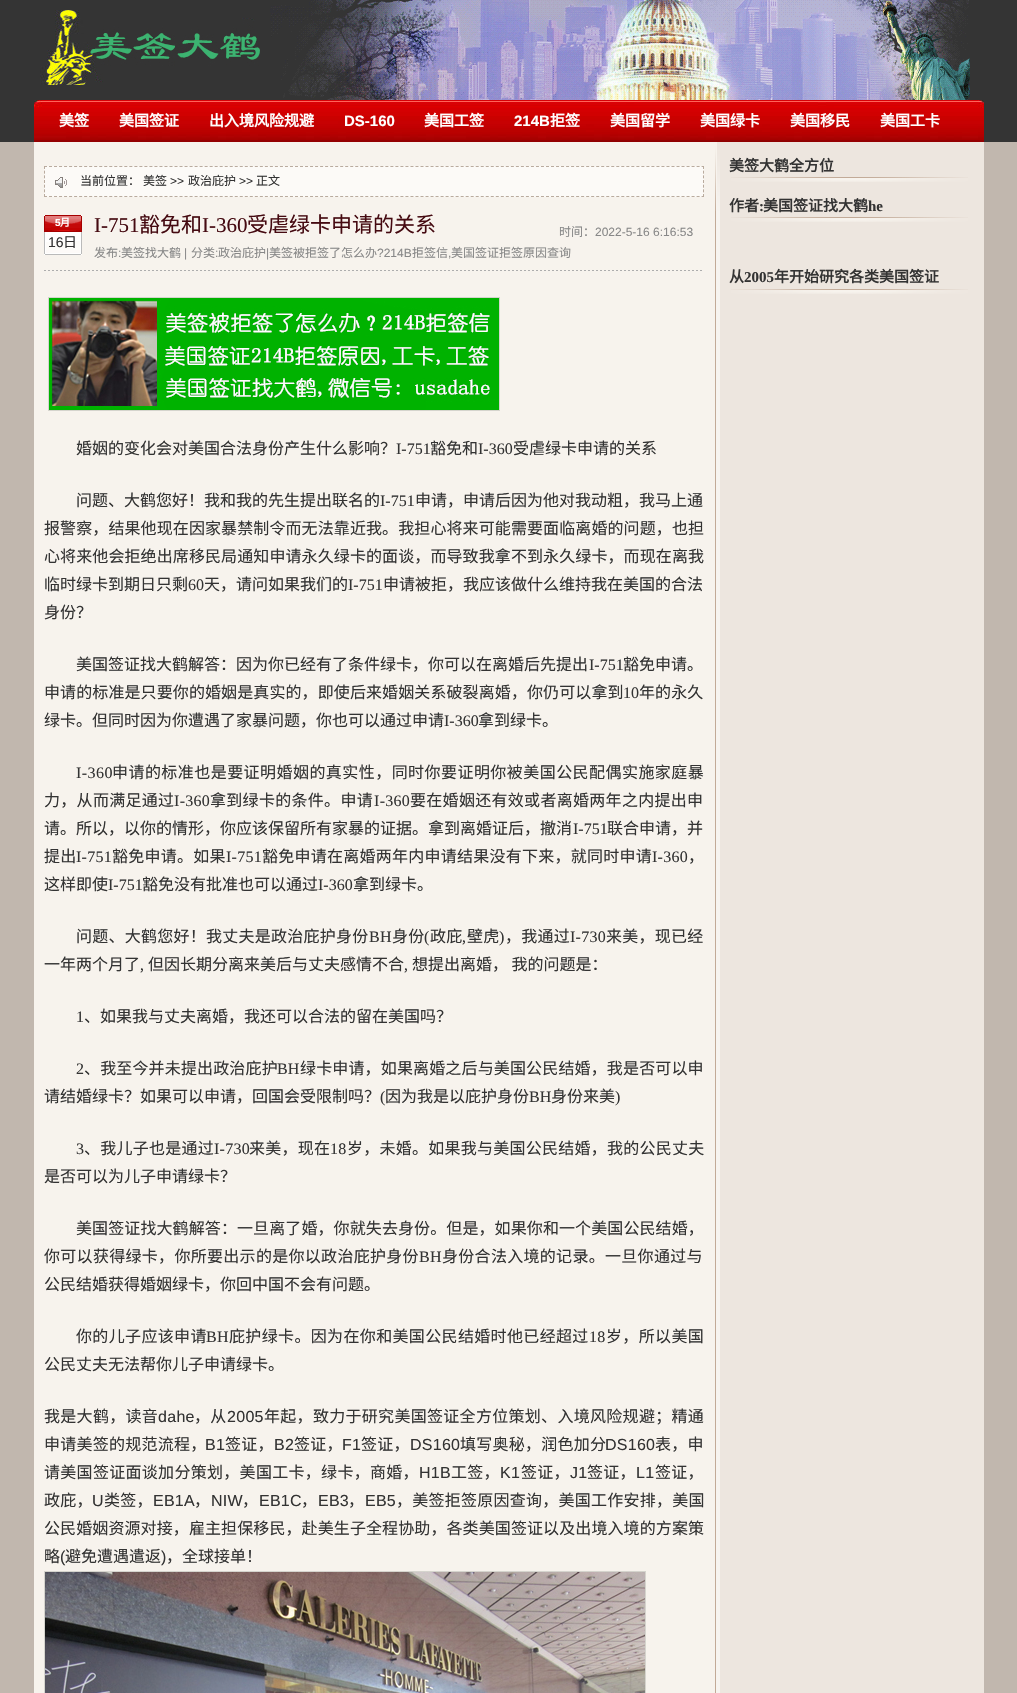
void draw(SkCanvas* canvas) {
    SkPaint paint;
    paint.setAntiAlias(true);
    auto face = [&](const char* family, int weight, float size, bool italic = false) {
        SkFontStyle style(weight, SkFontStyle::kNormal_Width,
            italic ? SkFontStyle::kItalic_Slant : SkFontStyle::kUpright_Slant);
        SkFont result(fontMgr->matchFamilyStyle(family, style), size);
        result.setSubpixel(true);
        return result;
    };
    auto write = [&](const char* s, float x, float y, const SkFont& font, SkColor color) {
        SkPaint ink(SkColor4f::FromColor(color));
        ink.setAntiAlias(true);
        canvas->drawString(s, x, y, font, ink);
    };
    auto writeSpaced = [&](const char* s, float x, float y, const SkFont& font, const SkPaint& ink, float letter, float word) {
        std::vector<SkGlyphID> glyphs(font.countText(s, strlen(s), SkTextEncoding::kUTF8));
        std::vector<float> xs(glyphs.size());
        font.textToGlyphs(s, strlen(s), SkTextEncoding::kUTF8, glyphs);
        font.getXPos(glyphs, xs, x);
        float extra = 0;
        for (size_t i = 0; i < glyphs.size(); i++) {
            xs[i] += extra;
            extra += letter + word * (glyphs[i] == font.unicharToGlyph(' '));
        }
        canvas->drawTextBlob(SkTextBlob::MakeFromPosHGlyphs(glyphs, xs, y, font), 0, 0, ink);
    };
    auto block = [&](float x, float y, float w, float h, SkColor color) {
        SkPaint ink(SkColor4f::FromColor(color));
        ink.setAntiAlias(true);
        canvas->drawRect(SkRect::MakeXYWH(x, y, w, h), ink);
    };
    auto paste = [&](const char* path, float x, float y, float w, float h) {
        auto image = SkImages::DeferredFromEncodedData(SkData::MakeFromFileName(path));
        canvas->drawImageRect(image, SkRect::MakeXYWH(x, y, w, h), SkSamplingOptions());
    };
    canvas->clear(SkColorSetRGB(193, 183, 174));
    block(0, 0, 1017, 142, SkColorSetRGB(52, 52, 52));
    paste("pic1.png", 40, 10, 220, 75);
    paste("pic2.png", 270, 0, 700, 100);
    paste("pic3.png", 34, 100, 950, 42);
    auto kFont1 = face("Noto Sans CJK SC", 700, 15);
    write("美签", 59, 126, kFont1, SK_ColorWHITE);
    write("美国签证", 119, 126, kFont1, SK_ColorWHITE);
    write("出入境风险规避", 209, 126, kFont1, SK_ColorWHITE);
    auto kFont2 = face("Liberation Sans", 700, 15);
    write("DS-160", 344, 126, kFont2, SK_ColorWHITE);
    write("美国工签", 424, 126, kFont1, SK_ColorWHITE);
    write("214B", 514, 126, kFont2, SK_ColorWHITE);
    write("拒签", 550, 126, kFont1, SK_ColorWHITE);
    write("美国留学", 610, 126, kFont1, SK_ColorWHITE);
    write("美国绿卡", 700, 126, kFont1, SK_ColorWHITE);
    write("美国移民", 790, 126, kFont1, SK_ColorWHITE);
    write("美国工卡", 880, 126, kFont1, SK_ColorWHITE);
    block(34, 142, 681, 1551, SkColorSetRGB(247, 243, 237));
    paste("pic4.png", 715, 142, 269, 1551);
    block(44, 166, 660, 31, SkColorSetRGB(252, 250, 247));
    paste("pic5.png", 55, 177, 12, 11);
    paint.setStyle(SkPaint::kStroke_Style);
    paint.setStrokeWidth(1);
    paint.setColor(SkColorSetRGB(185, 171, 158));
    paint.setPathEffect(SkDashPathEffect::Make({{3, 2.02f}}, 0));
    canvas->drawPath(SkPathBuilder().moveTo(44, 166.5f).lineTo(704, 166.5f).detach(), paint);
    paint.setPathEffect(nullptr);
    paint.setPathEffect(SkDashPathEffect::Make({{3, 1.67f}}, 0));
    canvas->drawPath(SkPathBuilder().moveTo(703.5f, 166).lineTo(703.5f, 197).detach(), paint);
    paint.setPathEffect(nullptr);
    paint.setPathEffect(SkDashPathEffect::Make({{3, 2.02f}}, 0));
    canvas->drawPath(SkPathBuilder().moveTo(44, 196.5f).lineTo(704, 196.5f).detach(), paint);
    paint.setPathEffect(nullptr);
    paint.setPathEffect(SkDashPathEffect::Make({{3, 1.67f}}, 0));
    canvas->drawPath(SkPathBuilder().moveTo(44.5f, 166).lineTo(44.5f, 197).detach(), paint);
    paint.setPathEffect(nullptr);
    auto kFont3 = face("Noto Sans CJK SC", 400, 12);
    write("当前位置：", 80, 185, kFont3, SkColorSetRGB(51, 51, 51));
    write("美签", 143, 185, kFont3, SkColorSetRGB(51, 51, 51));
    auto kFont4 = face("Liberation Sans", 400, 12);
    write(">>", 170, 185, kFont4, SkColorSetRGB(51, 51, 51));
    write("政治庇护", 188, 185, kFont3, SkColorSetRGB(51, 51, 51));
    write(">>", 239, 185, kFont4, SkColorSetRGB(51, 51, 51));
    write("正文", 256, 185, kFont3, SkColorSetRGB(51, 51, 51));
    paste("pic6.png", 44, 270, 658, 1);
    paste("pic7.png", 44, 215, 38, 40);
    auto kFont5 = face("Liberation Sans", 700, 10);
    write("5", 55, 226, kFont5, SK_ColorWHITE);
    auto kFont6 = face("Noto Sans CJK SC", 700, 10);
    write("月", 60, 226, kFont6, SK_ColorWHITE);
    auto kFont7 = face("Liberation Sans", 400, 14);
    write("16", 48, 247, kFont7, SkColorSetRGB(51, 51, 51));
    auto kFont8 = face("Noto Sans CJK SC", 400, 14);
    write("日", 63, 247, kFont8, SkColorSetRGB(51, 51, 51));
    auto kFont9 = face("Liberation Serif", 400, 21);
    write("I-751", 94, 232, kFont9, SkColorSetRGB(69, 10, 17));
    auto kFont10 = face("Noto Sans CJK SC", 400, 21);
    write("豁免和", 139, 232, kFont10, SkColorSetRGB(69, 10, 17));
    write("I-360", 202, 232, kFont9, SkColorSetRGB(69, 10, 17));
    write("受虐绿卡申请的关系", 247, 232, kFont10, SkColorSetRGB(69, 10, 17));
    write("时间：", 559, 236, kFont3, SkColorSetRGB(136, 136, 136));
    write("2022-5-16 6:16:53", 595, 236, kFont4, SkColorSetRGB(136, 136, 136));
    write("发布", 94, 257, kFont3, SkColorSetRGB(136, 136, 136));
    write(":", 118, 257, kFont4, SkColorSetRGB(136, 136, 136));
    write("美签找大鹤", 121, 257, kFont3, SkColorSetRGB(136, 136, 136));
    write("|", 184, 257, kFont4, SkColorSetRGB(136, 136, 136));
    write("分类", 191, 257, kFont3, SkColorSetRGB(136, 136, 136));
    write(":", 215, 257, kFont4, SkColorSetRGB(136, 136, 136));
    write("政治庇护", 218, 257, kFont3, SkColorSetRGB(136, 136, 136));
    write("|", 266, 257, kFont4, SkColorSetRGB(136, 136, 136));
    write("美签被拒签了怎么办", 269, 257, kFont3, SkColorSetRGB(136, 136, 136));
    write("?214B", 377, 257, kFont4, SkColorSetRGB(136, 136, 136));
    write("拒签信", 412, 257, kFont3, SkColorSetRGB(136, 136, 136));
    write(",", 448, 257, kFont4, SkColorSetRGB(136, 136, 136));
    write("美国签证拒签原因查询", 451, 257, kFont3, SkColorSetRGB(136, 136, 136));
    paint.setColor(SkColorSetRGB(213, 212, 205));
    canvas->drawRect(SkRect::MakeXYWH(48.5f, 297.5f, 451, 113), paint);
    paste("pic8.png", 49, 298, 450, 112);
    auto kFont11 = face("Noto Sans CJK SC", 400, 16);
    write("婚姻的变化会对美国合法身份产生什么影响？", 76, 454, kFont11, SkColorSetRGB(51, 51, 51));
    auto kFont12 = face("Liberation Serif", 400, 16);
    write("I-751", 396, 454, kFont12, SkColorSetRGB(51, 51, 51));
    write("豁免和", 430, 454, kFont11, SkColorSetRGB(51, 51, 51));
    write("I-360", 478, 454, kFont12, SkColorSetRGB(51, 51, 51));
    write("受虐绿卡申请的关系", 513, 454, kFont11, SkColorSetRGB(51, 51, 51));
    write("问题、大鹤您好！我和我的先生提出联名的", 76, 506, kFont11, SkColorSetRGB(51, 51, 51));
    write("I-751", 380, 506, kFont12, SkColorSetRGB(51, 51, 51));
    write("申请，申请后因为他对我动粗，我马上通", 415, 506, kFont11, SkColorSetRGB(51, 51, 51));
    paint.setStyle(SkPaint::kFill_Style);
    paint.setColor(SkColorSetRGB(51, 51, 51));
    writeSpaced("报警察，结果他现在因家暴禁制令而无法靠近我。我担心将来可能需要面临离婚的问题，也担", 44, 534, kFont11, paint, 0.1f, 0);
    writeSpaced("心将来他会拒绝出席移民局通知申请永久绿卡的面谈，而导致我拿不到永久绿卡，而现在离我", 44, 562, kFont11, paint, 0.1f, 0);
    write("临时绿卡到期日只剩", 44, 590, kFont11, SkColorSetRGB(51, 51, 51));
    write("60", 188, 590, kFont12, SkColorSetRGB(51, 51, 51));
    write("天，请问如果我们的", 204, 590, kFont11, SkColorSetRGB(51, 51, 51));
    write("I-751", 348, 590, kFont12, SkColorSetRGB(51, 51, 51));
    write("申请被拒，我应该做什么维持我在美国的合法", 383, 590, kFont11, SkColorSetRGB(51, 51, 51));
    write("身份？", 44, 618, kFont11, SkColorSetRGB(51, 51, 51));
    write("美国签证找大鹤解答：因为你已经有了条件绿卡，你可以在离婚后先提出", 76, 670, kFont11, SkColorSetRGB(51, 51, 51));
    write("I-751", 589, 670, kFont12, SkColorSetRGB(51, 51, 51));
    write("豁免申请。", 623, 670, kFont11, SkColorSetRGB(51, 51, 51));
    writeSpaced("申请的标准是只要你的婚姻是真实的，即使后来婚姻关系破裂离婚，你仍可以拿到", 44, 698, kFont11, paint, 0.1f, 0);
    writeSpaced("10", 623, 698, kFont12, paint, 0.1f, 0);
    writeSpaced("年的永久", 639, 698, kFont11, paint, 0.1f, 0);
    write("绿卡。但同时因为你遭遇了家暴问题，你也可以通过申请", 44, 726, kFont11, SkColorSetRGB(51, 51, 51));
    write("I-360", 444, 726, kFont12, SkColorSetRGB(51, 51, 51));
    write("拿到绿卡。", 478, 726, kFont11, SkColorSetRGB(51, 51, 51));
    writeSpaced("I-360", 76, 778, kFont12, paint, 0.45f, 0);
    writeSpaced("申请的标准也是要证明婚姻的真实性，同时你要证明你被美国公民配偶实施家庭暴", 112, 778, kFont11, paint, 0.45f, 0);
    writeSpaced("力，从而满足通过", 44, 806, kFont11, paint, 0.3f, 0);
    writeSpaced("I-360", 174, 806, kFont12, paint, 0.3f, 0);
    writeSpaced("拿到绿卡的条件。申请", 210, 806, kFont11, paint, 0.3f, 0);
    writeSpaced("I-360", 374, 806, kFont12, paint, 0.3f, 0);
    writeSpaced("要在婚姻还有效或者离婚两年之内提出申", 410, 806, kFont11, paint, 0.3f, 0);
    write("请。所以，以你的情形，你应该保留所有家暴的证据。拿到离婚证后，撤消", 44, 834, kFont11, SkColorSetRGB(51, 51, 51));
    write("I-751", 573, 834, kFont12, SkColorSetRGB(51, 51, 51));
    write("联合申请，并", 607, 834, kFont11, SkColorSetRGB(51, 51, 51));
    writeSpaced("提出", 44, 862, kFont11, paint, 0.25f, 0);
    writeSpaced("I-751", 76, 862, kFont12, paint, 0.25f, 0);
    writeSpaced("豁免申请。如果", 112, 862, kFont11, paint, 0.25f, 0);
    writeSpaced("I-751", 226, 862, kFont12, paint, 0.25f, 0);
    writeSpaced("豁免申请在离婚两年内申请结果没有下来，就同时申请", 262, 862, kFont11, paint, 0.25f, 0);
    writeSpaced("I-360", 652, 862, kFont12, paint, 0.25f, 0);
    writeSpaced("，", 688, 862, kFont11, paint, 0.25f, 0);
    write("这样即使", 44, 890, kFont11, SkColorSetRGB(51, 51, 51));
    write("I-751", 108, 890, kFont12, SkColorSetRGB(51, 51, 51));
    write("豁免没有批准也可以通过", 142, 890, kFont11, SkColorSetRGB(51, 51, 51));
    write("I-360", 318, 890, kFont12, SkColorSetRGB(51, 51, 51));
    write("拿到绿卡。", 353, 890, kFont11, SkColorSetRGB(51, 51, 51));
    writeSpaced("问题、大鹤您好！我丈夫是政治庇护身份", 76, 942, kFont11, paint, 0.25f, 0);
    writeSpaced("BH", 369, 942, kFont12, paint, 0.25f, 0);
    writeSpaced("身份", 392, 942, kFont11, paint, 0.25f, 0);
    writeSpaced("(", 424, 942, kFont12, paint, 0.25f, 0);
    writeSpaced("政庇", 430, 942, kFont11, paint, 0.25f, 0);
    writeSpaced(",", 462, 942, kFont12, paint, 0.25f, 0);
    writeSpaced("壁虎", 467, 942, kFont11, paint, 0.25f, 0);
    writeSpaced(")", 499, 942, kFont12, paint, 0.25f, 0);
    writeSpaced("，我通过", 505, 942, kFont11, paint, 0.25f, 0);
    writeSpaced("I-730", 570, 942, kFont12, paint, 0.25f, 0);
    writeSpaced("来美，现已经", 606, 942, kFont11, paint, 0.25f, 0);
    write("一年两个月了", 44, 970, kFont11, SkColorSetRGB(51, 51, 51));
    write(",", 140, 970, kFont12, SkColorSetRGB(51, 51, 51));
    write("但因长期分离来美后与丈夫感情不合", 148, 970, kFont11, SkColorSetRGB(51, 51, 51));
    write(",", 404, 970, kFont12, SkColorSetRGB(51, 51, 51));
    write("想提出离婚， 我的问题是：", 412, 970, kFont11, SkColorSetRGB(51, 51, 51));
    write("1", 76, 1022, kFont12, SkColorSetRGB(51, 51, 51));
    write("、如果我与丈夫离婚，我还可以合法的留在美国吗？", 84, 1022, kFont11, SkColorSetRGB(51, 51, 51));
    writeSpaced("2", 76, 1074, kFont12, paint, 0.15f, 0);
    writeSpaced("、我至今并未提出政治庇护", 84, 1074, kFont11, paint, 0.15f, 0);
    writeSpaced("BH", 277, 1074, kFont12, paint, 0.15f, 0);
    writeSpaced("绿卡申请，如果离婚之后与美国公民结婚，我是否可以申", 300, 1074, kFont11, paint, 0.15f, 0);
    write("请结婚绿卡？如果可以申请，回国会受限制吗？", 44, 1102, kFont11, SkColorSetRGB(51, 51, 51));
    write("(", 380, 1102, kFont12, SkColorSetRGB(51, 51, 51));
    write("因为我是以庇护身份", 385, 1102, kFont11, SkColorSetRGB(51, 51, 51));
    write("BH", 529, 1102, kFont12, SkColorSetRGB(51, 51, 51));
    write("身份来美", 551, 1102, kFont11, SkColorSetRGB(51, 51, 51));
    write(")", 615, 1102, kFont12, SkColorSetRGB(51, 51, 51));
    writeSpaced("3", 76, 1154, kFont12, paint, 0.25f, 0);
    writeSpaced("、我儿子也是通过", 84, 1154, kFont11, paint, 0.25f, 0);
    writeSpaced("I-730", 214, 1154, kFont12, paint, 0.25f, 0);
    writeSpaced("来美，现在", 249, 1154, kFont11, paint, 0.25f, 0);
    writeSpaced("18", 330, 1154, kFont12, paint, 0.25f, 0);
    writeSpaced("岁，未婚。如果我与美国公民结婚，我的公民丈夫", 347, 1154, kFont11, paint, 0.25f, 0);
    write("是否可以为儿子申请绿卡？", 44, 1182, kFont11, SkColorSetRGB(51, 51, 51));
    writeSpaced("美国签证找大鹤解答：一旦离了婚，你就失去身份。但是，如果你和一个美国公民结婚，", 76, 1234, kFont11, paint, 0.1f, 0);
    writeSpaced("你可以获得绿卡，你所要出示的是你以政治庇护身份", 44, 1262, kFont11, paint, 0.3f, 0);
    writeSpaced("BH", 419, 1262, kFont12, paint, 0.3f, 0);
    writeSpaced("身份合法入境的记录。一旦你通过与", 442, 1262, kFont11, paint, 0.3f, 0);
    write("公民结婚获得婚姻绿卡，你回中国不会有问题。", 44, 1290, kFont11, SkColorSetRGB(51, 51, 51));
    writeSpaced("你的儿子应该申请", 76, 1342, kFont11, paint, 0.35f, 0);
    writeSpaced("BH", 206, 1342, kFont12, paint, 0.35f, 0);
    writeSpaced("庇护绿卡。因为在你和美国公民结婚时他已经超过", 229, 1342, kFont11, paint, 0.35f, 0);
    writeSpaced("18", 589, 1342, kFont12, paint, 0.35f, 0);
    writeSpaced("岁，所以美国", 606, 1342, kFont11, paint, 0.35f, 0);
    write("公民丈夫无法帮你儿子申请绿卡。", 44, 1370, kFont11, SkColorSetRGB(51, 51, 51));
    writeSpaced("我是大鹤，读音", 44, 1422, kFont11, paint, 0.3f, 0);
    auto kFont13 = face("Liberation Sans", 400, 16);
    writeSpaced("dahe", 158, 1422, kFont13, paint, 0.3f, 0);
    writeSpaced("，从", 194, 1422, kFont11, paint, 0.3f, 0);
    writeSpaced("2005", 227, 1422, kFont13, paint, 0.3f, 0);
    writeSpaced("年起，致力于研究美国签证全方位策划、入境风险规避；精通", 264, 1422, kFont11, paint, 0.3f, 0);
    writeSpaced("申请美签的规范流程，", 44, 1450, kFont11, paint, 0.25f, 0);
    writeSpaced("B1", 205, 1450, kFont13, paint, 0.25f, 0);
    writeSpaced("签证，", 225, 1450, kFont11, paint, 0.25f, 0);
    writeSpaced("B2", 274, 1450, kFont13, paint, 0.25f, 0);
    writeSpaced("签证，", 294, 1450, kFont11, paint, 0.25f, 0);
    writeSpaced("F1", 342, 1450, kFont13, paint, 0.25f, 0);
    writeSpaced("签证，", 361, 1450, kFont11, paint, 0.25f, 0);
    writeSpaced("DS160", 410, 1450, kFont13, paint, 0.25f, 0);
    writeSpaced("填写奥秘，润色加分", 460, 1450, kFont11, paint, 0.25f, 0);
    writeSpaced("DS160", 605, 1450, kFont13, paint, 0.25f, 0);
    writeSpaced("表，申", 655, 1450, kFont11, paint, 0.25f, 0);
    writeSpaced("请美国签证面谈加分策划，美国工卡，绿卡，商婚，", 44, 1478, kFont11, paint, 0.3f, 0);
    writeSpaced("H1B", 419, 1478, kFont13, paint, 0.3f, 0);
    writeSpaced("工签，", 451, 1478, kFont11, paint, 0.3f, 0);
    writeSpaced("K1", 500, 1478, kFont13, paint, 0.3f, 0);
    writeSpaced("签证，", 521, 1478, kFont11, paint, 0.3f, 0);
    writeSpaced("J1", 570, 1478, kFont13, paint, 0.3f, 0);
    writeSpaced("签证，", 587, 1478, kFont11, paint, 0.3f, 0);
    writeSpaced("L1", 636, 1478, kFont13, paint, 0.3f, 0);
    writeSpaced("签证，", 655, 1478, kFont11, paint, 0.3f, 0);
    writeSpaced("政庇，", 44, 1506, kFont11, paint, 0.25f, 0);
    writeSpaced("U", 92, 1506, kFont13, paint, 0.25f, 0);
    writeSpaced("类签，", 104, 1506, kFont11, paint, 0.25f, 0);
    writeSpaced("EB1A", 153, 1506, kFont13, paint, 0.25f, 0);
    writeSpaced("，", 194, 1506, kFont11, paint, 0.25f, 0);
    writeSpaced("NIW", 211, 1506, kFont13, paint, 0.25f, 0);
    writeSpaced("，", 242, 1506, kFont11, paint, 0.25f, 0);
    writeSpaced("EB1C", 259, 1506, kFont13, paint, 0.25f, 0);
    writeSpaced("，", 301, 1506, kFont11, paint, 0.25f, 0);
    writeSpaced("EB3", 318, 1506, kFont13, paint, 0.25f, 0);
    writeSpaced("，", 348, 1506, kFont11, paint, 0.25f, 0);
    writeSpaced("EB5", 365, 1506, kFont13, paint, 0.25f, 0);
    writeSpaced("，美签拒签原因查询，美国工作安排，美国", 396, 1506, kFont11, paint, 0.25f, 0);
    writeSpaced("公民婚姻资源对接，雇主担保移民，赴美生子全程协助，各类美国签证以及出境入境的方案策", 44, 1534, kFont11, paint, 0.1f, 0);
    write("略", 44, 1562, kFont11, SkColorSetRGB(51, 51, 51));
    write("(", 60, 1562, kFont13, SkColorSetRGB(51, 51, 51));
    write("避免遭遇遣返", 65, 1562, kFont11, SkColorSetRGB(51, 51, 51));
    write(")", 161, 1562, kFont13, SkColorSetRGB(51, 51, 51));
    write("，全球接单！", 166, 1562, kFont11, SkColorSetRGB(51, 51, 51));
    paint.setStyle(SkPaint::kStroke_Style);
    paint.setColor(SkColorSetRGB(213, 212, 205));
    canvas->drawRect(SkRect::MakeXYWH(44.5f, 1571.5f, 601, 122), paint);
    paste("pic9.png", 45, 1572, 600, 121);
    paste("pic10.png", 715, 142, 5, 69);
    paste("pic11.png", 731, 177, 237, 5);
    write("美签大鹤全方位", 729, 171, kFont1, SkColorSetRGB(51, 51, 51));
    paste("pic11.png", 731, 217, 237, 5);
    write("作者", 729, 211, kFont1, SkColorSetRGB(51, 51, 51));
    auto kFont14 = face("Liberation Serif", 700, 15);
    write(":", 759, 211, kFont14, SkColorSetRGB(51, 51, 51));
    write("美国签证找大鹤", 763, 211, kFont1, SkColorSetRGB(51, 51, 51));
    write("he", 868, 211, kFont14, SkColorSetRGB(51, 51, 51));
    paste("pic11.png", 731, 289, 237, 5);
    write("从", 729, 282, kFont1, SkColorSetRGB(51, 51, 51));
    write("2005", 744, 282, kFont14, SkColorSetRGB(51, 51, 51));
    write("年开始研究各类美国签证", 774, 282, kFont1, SkColorSetRGB(51, 51, 51));
}
